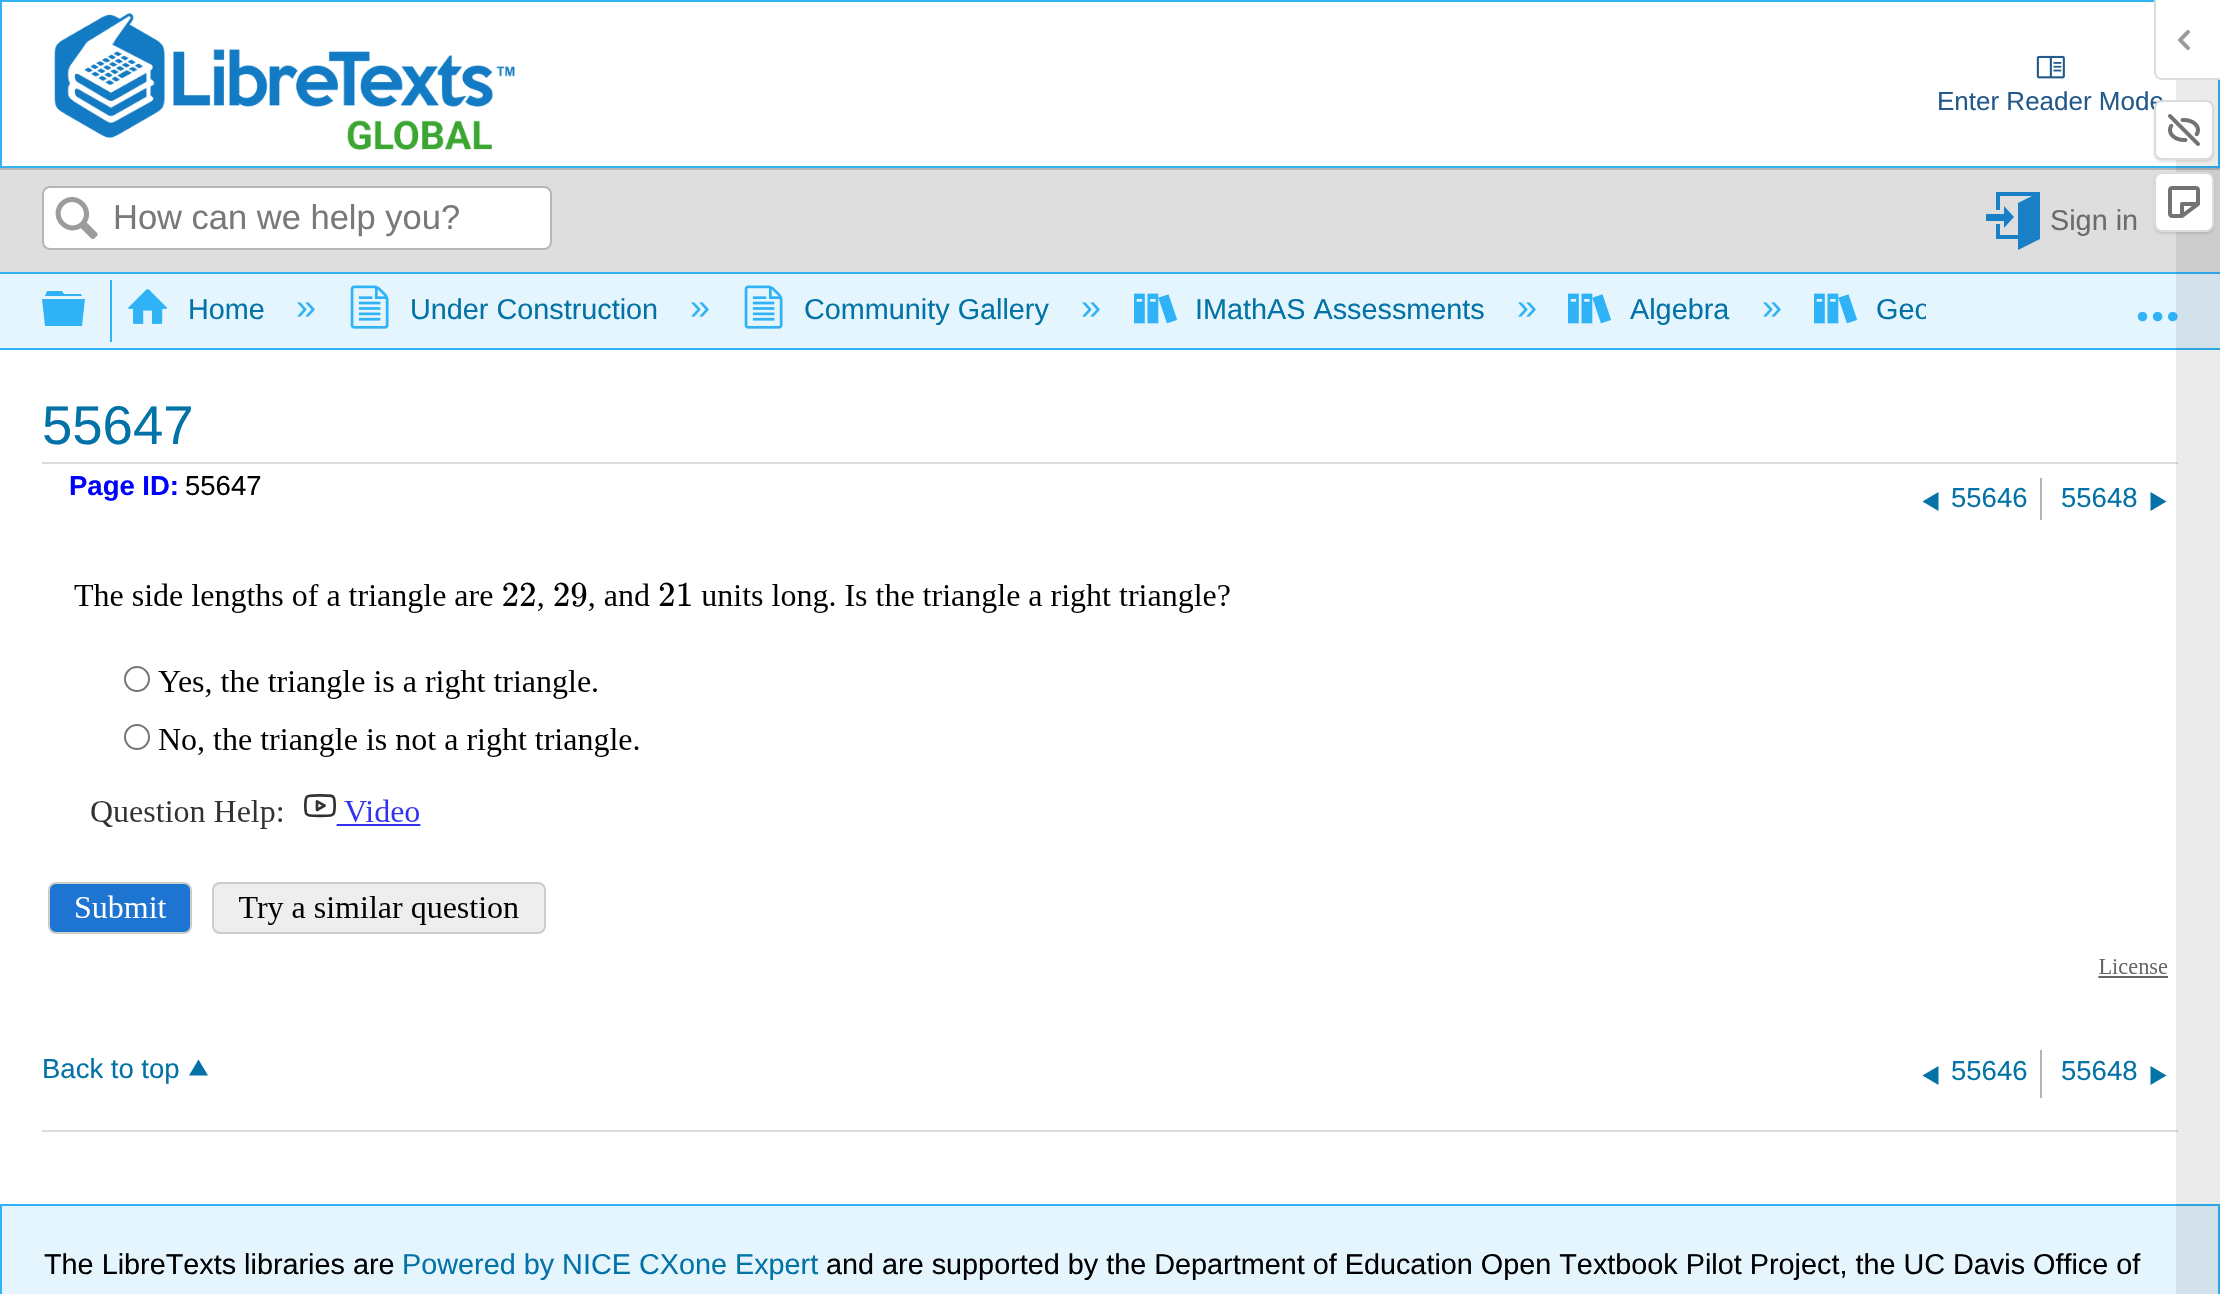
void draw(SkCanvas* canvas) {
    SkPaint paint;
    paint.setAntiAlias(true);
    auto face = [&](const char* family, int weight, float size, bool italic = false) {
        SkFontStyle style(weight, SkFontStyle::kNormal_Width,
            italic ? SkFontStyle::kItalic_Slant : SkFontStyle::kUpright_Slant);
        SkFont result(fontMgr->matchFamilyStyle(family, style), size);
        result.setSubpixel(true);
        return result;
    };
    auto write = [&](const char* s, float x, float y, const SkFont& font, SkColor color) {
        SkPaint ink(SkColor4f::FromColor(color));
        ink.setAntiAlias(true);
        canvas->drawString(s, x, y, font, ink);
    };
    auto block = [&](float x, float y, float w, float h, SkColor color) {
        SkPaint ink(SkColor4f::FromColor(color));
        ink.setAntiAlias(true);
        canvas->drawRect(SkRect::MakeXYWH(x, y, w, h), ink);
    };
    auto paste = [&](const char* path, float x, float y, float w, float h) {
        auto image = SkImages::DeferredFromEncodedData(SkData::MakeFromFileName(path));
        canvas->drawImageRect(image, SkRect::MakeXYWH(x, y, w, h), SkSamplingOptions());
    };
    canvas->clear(SK_ColorWHITE);
    paint.setStyle(SkPaint::kStroke_Style);
    paint.setStrokeWidth(2);
    paint.setColor(SkColorSetRGB(48, 179, 246));
    canvas->drawRect(SkRect::MakeXYWH(1, 1, 2218, 166), paint);
    paste("pic1.png", 54, 13, 461, 137);
    paste("pic2.png", 2036, 55, 29, 24);
    auto kFont1 = face("Liberation Sans", 400, 26);
    write("Enter Reader Mode", 1937, 110, kFont1, SkColorSetRGB(35, 90, 139));
    block(0, 170, 2220, 102, SkColorSetRGB(222, 222, 222));
    block(0, 168, 2220, 2, SkColorSetRGB(182, 182, 182));
    paint.setStyle(SkPaint::kFill_Style);
    paint.setColor(SK_ColorWHITE);
    canvas->drawRoundRect(SkRect::MakeXYWH(43, 187, 508, 62), 7, 7, paint);
    paint.setStyle(SkPaint::kStroke_Style);
    paint.setColor(SkColorSetRGB(182, 182, 182));
    canvas->drawRoundRect(SkRect::MakeXYWH(43, 187, 508, 62), 7, 7, paint);
    paste("pic3.png", 55, 197, 43, 42);
    auto kFont2 = face("Liberation Sans", 400, 34.5f);
    write("How can we help you?", 113, 229, kFont2, SkColorSetRGB(121, 121, 121));
    paint.setStyle(SkPaint::kFill_Style);
    paint.setColor(SkColorSetRGB(25, 127, 198));
    canvas->drawPath(SkPathBuilder().moveTo(2004, 221).lineTo(1986, 221).lineTo(1986, 214).lineTo(2004, 214).lineTo(2004, 206).lineTo(2014, 217).lineTo(2004, 228).close().moveTo(2040, 192).lineTo(2040, 239).lineTo(2018, 250).lineTo(2018, 239).lineTo(1996, 239).lineTo(1996, 224).lineTo(2000, 224).lineTo(2000, 235).lineTo(2018, 235).lineTo(2018, 203).lineTo(2032, 196).lineTo(2000, 196).lineTo(2000, 210).lineTo(1996, 210).lineTo(1996, 192).close().detach(), paint);
    auto kFont3 = face("Liberation Sans", 400, 28.8f);
    write("Sign in", 2050, 230, kFont3, SkColorSetRGB(107, 107, 107));
    block(0, 274, 2220, 74, SkColorSetRGB(229, 245, 254));
    block(0, 272, 2220, 2, SkColorSetRGB(48, 179, 246));
    block(0, 348, 2220, 2, SkColorSetRGB(48, 179, 246));
    paint.setColor(SkColorSetRGB(48, 179, 246));
    canvas->drawPath(SkPathBuilder().moveTo(42, 299).lineTo(85, 299).lineTo(82, 326).lineTo(45, 326).close().moveTo(81, 294).lineTo(82, 296).lineTo(45, 296).lineTo(47, 291).lineTo(62, 291).lineTo(64, 294).close().detach(), paint);
    block(110, 280, 2, 62, SkColorSetRGB(48, 179, 246));
    paste("pic4.png", 128, 289, 39, 35);
    write("Home", 188, 319, kFont3, SkColorSetRGB(3, 114, 166));
    auto kFont4 = face("Liberation Sans", 400, 36);
    write("»", 296, 319, kFont4, SkColorSetRGB(48, 179, 246));
    paste("pic5.png", 350, 285, 39, 44);
    write("Under Construction", 410, 319, kFont3, SkColorSetRGB(3, 114, 166));
    write("»", 690, 319, kFont4, SkColorSetRGB(48, 179, 246));
    paste("pic5.png", 744, 285, 39, 44);
    write("Community Gallery", 804, 319, kFont3, SkColorSetRGB(3, 114, 166));
    write("»", 1081, 319, kFont4, SkColorSetRGB(48, 179, 246));
    paste("pic6.png", 1134, 293, 44, 31);
    write("IMathAS Assessments", 1195, 319, kFont3, SkColorSetRGB(3, 114, 166));
    write("»", 1517, 319, kFont4, SkColorSetRGB(48, 179, 246));
    paste("pic6.png", 1568, 293, 44, 31);
    write("Algebra", 1630, 319, kFont3, SkColorSetRGB(3, 114, 166));
    write("»", 1762, 319, kFont4, SkColorSetRGB(48, 179, 246));
    paste("pic6.png", 1814, 293, 44, 31);
    canvas->save();
    canvas->clipRect(SkRect::MakeXYWH(112, 280, 1814, 62));
    write("Geo", 1876, 319, kFont3, SkColorSetRGB(3, 114, 166));
    canvas->restore();
    paste("pic7.png", 2137, 311, 41, 11);
    block(42, 462, 2136, 2, SkColorSetRGB(221, 221, 221));
    auto kFont5 = face("Liberation Sans", 400, 54.5f);
    write("55647", 42, 444, kFont5, SkColorSetRGB(3, 114, 166));
    auto kFont6 = face("Liberation Sans", 700, 27.5f);
    write("Page ID:", 69, 495, kFont6, SkColorSetRGB(0, 0, 255));
    auto kFont7 = face("Liberation Sans", 400, 27.5f);
    write("55647", 185, 495, kFont7, SK_ColorBLACK);
    block(2040, 478, 2, 42, SkColorSetRGB(180, 180, 180));
    paint.setColor(SkColorSetRGB(3, 114, 166));
    canvas->drawPath(SkPathBuilder().moveTo(1938.5f, 492).lineTo(1938.5f, 511).lineTo(1922.5f, 501.5f).close().detach(), paint);
    write("55646", 1951, 507, kFont7, SkColorSetRGB(3, 114, 166));
    write("55648", 2061, 507, kFont7, SkColorSetRGB(3, 114, 166));
    canvas->drawPath(SkPathBuilder().moveTo(2150.5f, 492).lineTo(2150.5f, 511).lineTo(2166.5f, 501.5f).close().detach(), paint);
    paste("pic8.png", 48, 582, 2120, 396);
    block(42, 1130, 2136, 2, SkColorSetRGB(221, 221, 221));
    write("Back to top", 42, 1078, kFont7, SkColorSetRGB(3, 114, 166));
    canvas->drawPath(SkPathBuilder().moveTo(189, 1075.5f).lineTo(208, 1075.5f).lineTo(198.5f, 1059.5f).close().detach(), paint);
    block(2040, 1050, 2, 48, SkColorSetRGB(180, 180, 180));
    canvas->drawPath(SkPathBuilder().moveTo(1938.5f, 1066).lineTo(1938.5f, 1085).lineTo(1922.5f, 1075.5f).close().detach(), paint);
    write("55646", 1951, 1080, kFont7, SkColorSetRGB(3, 114, 166));
    write("55648", 2061, 1080, kFont7, SkColorSetRGB(3, 114, 166));
    canvas->drawPath(SkPathBuilder().moveTo(2150.5f, 1066).lineTo(2150.5f, 1085).lineTo(2166.5f, 1075.5f).close().detach(), paint);
    paint.setColor(SkColorSetRGB(229, 245, 254));
    canvas->drawRect(SkRect::MakeXYWH(1, 1205, 2218, 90), paint);
    paint.setStyle(SkPaint::kStroke_Style);
    paint.setColor(SkColorSetRGB(48, 179, 246));
    canvas->drawRect(SkRect::MakeXYWH(1, 1205, 2218, 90), paint);
    write("The LibreTexts libraries are", 44, 1274, kFont3, SK_ColorBLACK);
    write("Powered by NICE CXone Expert", 402, 1274, kFont3, SkColorSetRGB(3, 114, 166));
    write("and are supported by the Department of Education Open Textbook Pilot Project, the UC Davis Office of", 826, 1274, kFont3, SK_ColorBLACK);
    block(2176, 80, 44, 1214, SkColorSetARGB(20, 0, 0, 0));
    paint.setStyle(SkPaint::kFill_Style);
    paint.setColor(SK_ColorWHITE);
    canvas->drawPath(SkPathBuilder().moveTo(2156, 0).lineTo(2220, 0).lineTo(2220, 78).lineTo(2162, 78).cubicTo(2158.5f, 78, 2156, 75.5f, 2156, 72).close().detach(), paint);
    paint.setColor(SkColorSetRGB(219, 219, 219));
    canvas->drawPath(SkPathBuilder(SkPathFillType::kEvenOdd).moveTo(2154, 0).lineTo(2220, 0).lineTo(2220, 80).lineTo(2162, 80).cubicTo(2158, 80, 2154, 76, 2154, 72).close().moveTo(2156, 0).lineTo(2220, 0).lineTo(2220, 78).lineTo(2162, 78).cubicTo(2159, 78, 2156, 75, 2156, 72).close().detach(), paint);
    paste("pic9.png", 2178, 30, 12, 20);
    paint.setColor(SkColorSetARGB(26, 0, 0, 0));
    paint.setMaskFilter(SkMaskFilter::MakeBlur(kNormal_SkBlurStyle, 1));
    canvas->drawRoundRect(SkRect::MakeXYWH(2154, 102, 60, 60), 8, 8, paint);
    paint.setMaskFilter(nullptr);
    paint.setColor(SK_ColorWHITE);
    canvas->drawRoundRect(SkRect::MakeXYWH(2155, 101, 58, 58), 7, 7, paint);
    paint.setStyle(SkPaint::kStroke_Style);
    paint.setColor(SkColorSetRGB(219, 219, 219));
    canvas->drawRoundRect(SkRect::MakeXYWH(2155, 101, 58, 58), 7, 7, paint);
    paste("pic10.png", 2168, 114, 32, 32);
    paint.setStyle(SkPaint::kFill_Style);
    paint.setColor(SkColorSetARGB(26, 0, 0, 0));
    paint.setMaskFilter(SkMaskFilter::MakeBlur(kNormal_SkBlurStyle, 1));
    canvas->drawRoundRect(SkRect::MakeXYWH(2154, 174, 60, 60), 8, 8, paint);
    paint.setMaskFilter(nullptr);
    paint.setColor(SK_ColorWHITE);
    canvas->drawRoundRect(SkRect::MakeXYWH(2155, 173, 58, 58), 7, 7, paint);
    paint.setStyle(SkPaint::kStroke_Style);
    paint.setColor(SkColorSetRGB(219, 219, 219));
    canvas->drawRoundRect(SkRect::MakeXYWH(2155, 173, 58, 58), 7, 7, paint);
    paste("pic11.png", 2168, 186, 32, 32);
}
